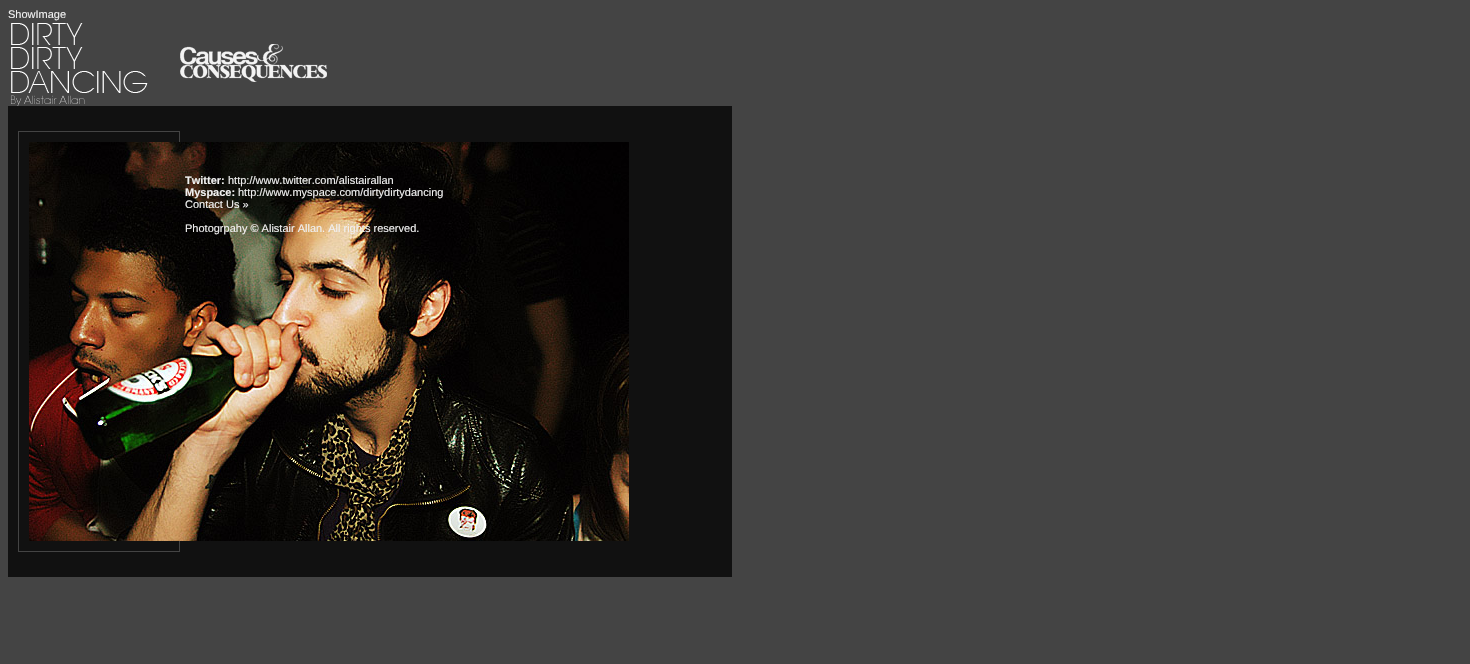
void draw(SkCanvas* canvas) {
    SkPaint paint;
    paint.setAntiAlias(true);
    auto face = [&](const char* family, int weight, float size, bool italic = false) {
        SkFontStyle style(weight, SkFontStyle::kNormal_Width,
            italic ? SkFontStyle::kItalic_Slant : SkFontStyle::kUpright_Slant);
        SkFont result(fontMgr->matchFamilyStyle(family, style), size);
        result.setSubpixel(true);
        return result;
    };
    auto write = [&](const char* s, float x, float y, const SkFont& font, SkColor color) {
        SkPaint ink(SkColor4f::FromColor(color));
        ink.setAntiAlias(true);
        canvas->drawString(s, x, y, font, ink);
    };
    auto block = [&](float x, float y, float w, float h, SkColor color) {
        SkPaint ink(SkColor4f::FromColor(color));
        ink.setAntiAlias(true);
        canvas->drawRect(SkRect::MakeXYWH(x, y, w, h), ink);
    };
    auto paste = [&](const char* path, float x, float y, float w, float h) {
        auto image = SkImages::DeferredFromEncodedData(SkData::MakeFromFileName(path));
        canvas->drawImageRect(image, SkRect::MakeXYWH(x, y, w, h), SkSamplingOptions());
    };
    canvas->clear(SkColorSetRGB(68, 68, 68));
    auto kFont1 = face("Liberation Sans", 400, 11);
    write("ShowImage", 8, 18, kFont1, SkColorSetRGB(240, 240, 240));
    paste("pic1.png", 11, 23, 137, 83);
    paste("pic2.png", 180, 44, 147, 38);
    block(8, 106, 724, 471, SkColorSetRGB(17, 17, 17));
    paint.setStyle(SkPaint::kStroke_Style);
    paint.setStrokeWidth(1);
    paint.setColor(SkColorSetRGB(68, 68, 68));
    canvas->drawRect(SkRect::MakeXYWH(18.5f, 131.5f, 161, 420), paint);
    paste("pic3.png", 29, 142, 600, 399);
    auto kFont2 = face("Liberation Sans", 700, 11);
    write("Twitter:", 185, 184, kFont2, SkColorSetRGB(240, 240, 240));
    write("http://www.twitter.com/alistairallan", 228, 184, kFont1, SkColorSetRGB(240, 240, 240));
    write("Myspace:", 185, 196, kFont2, SkColorSetRGB(240, 240, 240));
    write("http://www.myspace.com/dirtydirtydancing", 238, 196, kFont1, SkColorSetRGB(240, 240, 240));
    write("Contact Us »", 185, 208, kFont1, SkColorSetRGB(240, 240, 240));
    write("Photogrpahy © Alistair Allan. All rights reserved.", 185, 232, kFont1, SkColorSetRGB(240, 240, 240));
}
